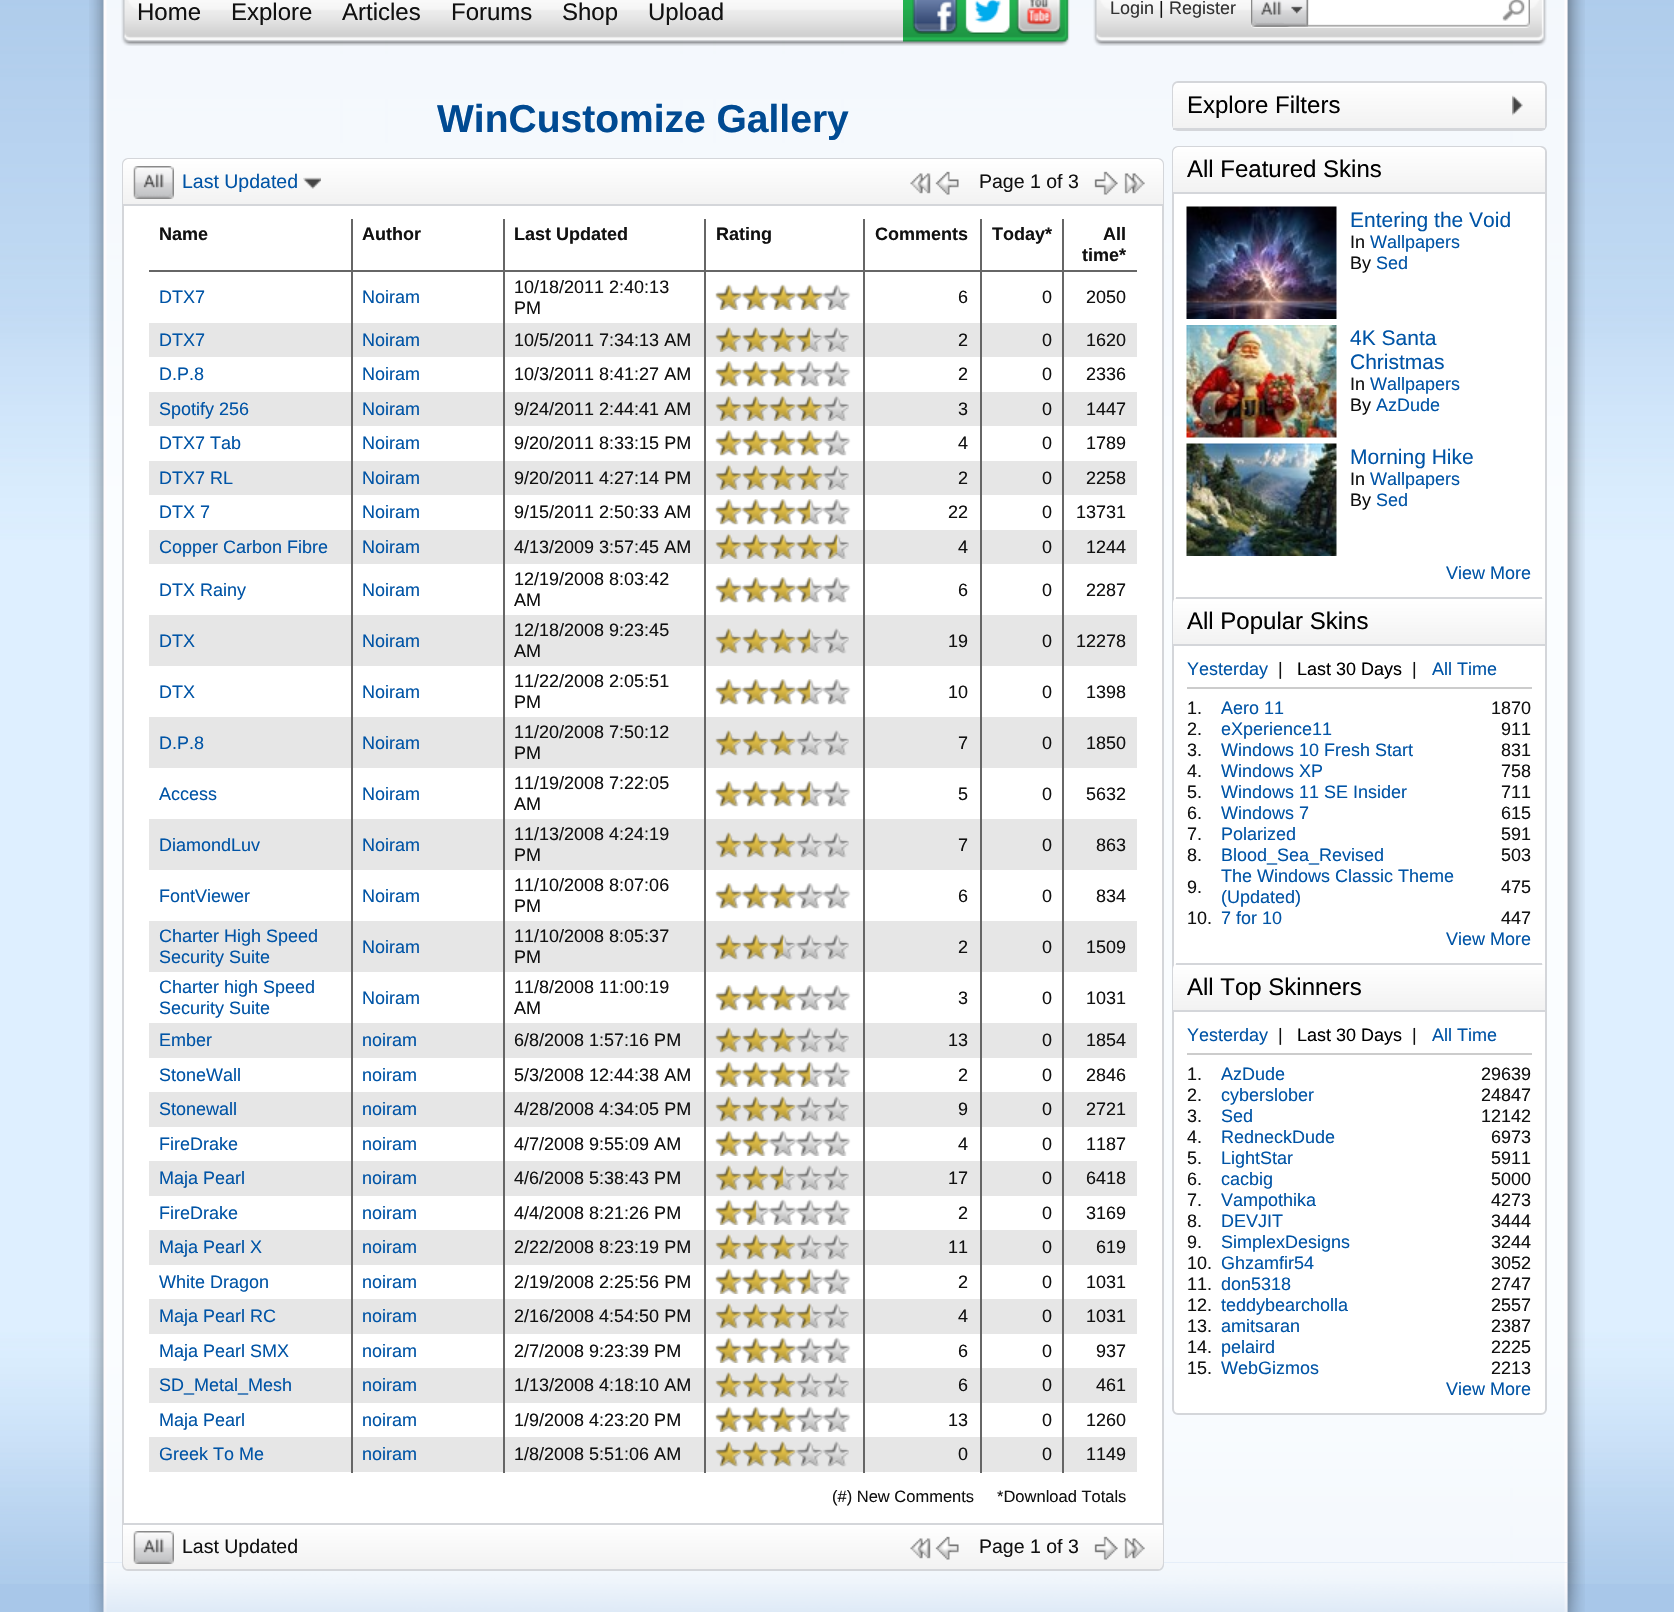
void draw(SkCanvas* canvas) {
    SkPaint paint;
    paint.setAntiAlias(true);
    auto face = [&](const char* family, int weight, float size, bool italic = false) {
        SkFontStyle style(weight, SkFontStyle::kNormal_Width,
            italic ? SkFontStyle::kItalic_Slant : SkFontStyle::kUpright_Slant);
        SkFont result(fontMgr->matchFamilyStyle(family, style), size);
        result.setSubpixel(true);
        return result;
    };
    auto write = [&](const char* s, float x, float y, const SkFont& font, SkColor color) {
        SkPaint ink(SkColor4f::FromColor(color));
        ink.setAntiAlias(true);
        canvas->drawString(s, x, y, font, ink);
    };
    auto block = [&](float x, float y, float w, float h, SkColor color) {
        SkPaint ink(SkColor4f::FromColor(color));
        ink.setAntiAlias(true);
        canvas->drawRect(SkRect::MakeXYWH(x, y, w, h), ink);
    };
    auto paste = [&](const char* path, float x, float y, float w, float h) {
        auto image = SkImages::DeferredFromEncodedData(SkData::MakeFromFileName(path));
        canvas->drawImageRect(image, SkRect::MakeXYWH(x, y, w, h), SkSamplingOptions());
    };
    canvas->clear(SkColorSetRGB(168, 199, 233));
    paste("pic1.png", 0, 0, 1674, 1584);
    paste("pic2.png", 89, 0, 1496, 1563);
    paste("pic3.png", 121, 0, 17, 46);
    paste("pic4.png", 138, 0, 765, 46);
    paste("pic5.png", 903, 0, 167, 46);
    auto kFont1 = face("Liberation Sans", 400, 24);
    write("Home", 137, 20, kFont1, SkColorSetRGB(17, 17, 17));
    write("Explore", 231, 20, kFont1, SkColorSetRGB(17, 17, 17));
    write("Articles", 342, 20, kFont1, SkColorSetRGB(17, 17, 17));
    write("Forums", 451, 20, kFont1, SkColorSetRGB(17, 17, 17));
    write("Shop", 562, 20, kFont1, SkColorSetRGB(17, 17, 17));
    write("Upload", 648, 20, kFont1, SkColorSetRGB(17, 17, 17));
    paste("pic6.png", 912, 0, 149, 34);
    paste("pic3.png", 1093, 0, 17, 46);
    paste("pic7.png", 1110, 0, 417, 46);
    auto kFont2 = face("Liberation Sans", 400, 18);
    write("Login", 1110, 14, kFont2, SkColorSetRGB(51, 51, 51));
    write("|", 1159, 14, kFont2, SkColorSetRGB(17, 17, 17));
    write("Register", 1169, 14, kFont2, SkColorSetRGB(51, 51, 51));
    paste("pic12.png", 1527, 0, 20, 46);
    paste("pic8.png", 1251, 0, 279, 28);
    paste("pic9.png", 1251, 0, 40, 27);
    paste("pic10.png", 1253, 0, 38, 27);
    paste("pic11.png", 1252, 0, 56, 27);
    auto kFont3 = face("Liberation Sans", 700, 39);
    write("WinCustomize Gallery", 437, 132, kFont3, SkColorSetRGB(0, 74, 146));
    paste("pic37.png", 89, 1562, 1496, 50);
    paint.setColor(SK_ColorWHITE);
    canvas->drawRoundRect(SkRect::MakeXYWH(123, 159, 1040, 1411), 5, 5, paint);
    paint.setStyle(SkPaint::kStroke_Style);
    paint.setStrokeWidth(2);
    paint.setColor(SkColorSetRGB(212, 214, 218));
    canvas->drawRoundRect(SkRect::MakeXYWH(123, 159, 1040, 1411), 5, 5, paint);
    paint.setStyle(SkPaint::kFill_Style);
    {
        const SkColor colors[] = {SK_ColorWHITE, SkColorSetRGB(242, 242, 242)};
        const float stops[] = {0, 1};
        const SkPoint ends[] = {{643, 159}, {643, 204}};
        paint.setShader(SkGradientShader::MakeLinear(ends, colors, stops, 2, SkTileMode::kClamp));
        paint.setAlpha(255);
    }
    canvas->drawPath(SkPathBuilder().moveTo(129, 159).lineTo(1157, 159).cubicTo(1160.5f, 159, 1163, 161.5f, 1163, 165).lineTo(1163, 204).lineTo(123, 204).lineTo(123, 165).cubicTo(123, 161.5f, 125.5f, 159, 129, 159).close().detach(), paint);
    block(123, 204, 1040, 2, SkColorSetRGB(212, 214, 218));
    paste("pic13.png", 133, 166, 41, 33);
    auto kFont4 = face("Liberation Sans", 400, 19.5f);
    write("Last Updated", 182, 188, kFont4, SkColorSetRGB(0, 84, 166));
    paste("pic14.png", 303, 177, 18, 12);
    paste("pic15.png", 910, 173, 21, 21);
    paste("pic16.png", 935, 171, 24, 24);
    write("Page 1 of 3", 979, 188, kFont4, SkColorSetRGB(17, 17, 17));
    paste("pic17.png", 1094, 171, 24, 24);
    paste("pic18.png", 1124, 173, 21, 21);
    block(1062, 270, 2, 1203, SkColorSetRGB(102, 102, 102));
    block(1062, 270, 75, 2, SkColorSetRGB(102, 102, 102));
    block(1062, 219, 2, 53, SkColorSetRGB(102, 102, 102));
    block(980, 270, 2, 1203, SkColorSetRGB(102, 102, 102));
    block(980, 270, 84, 2, SkColorSetRGB(102, 102, 102));
    block(980, 219, 2, 53, SkColorSetRGB(102, 102, 102));
    block(863, 270, 2, 1203, SkColorSetRGB(102, 102, 102));
    block(863, 270, 118, 2, SkColorSetRGB(102, 102, 102));
    block(863, 219, 2, 53, SkColorSetRGB(102, 102, 102));
    block(704, 270, 2, 1203, SkColorSetRGB(102, 102, 102));
    block(704, 270, 160, 2, SkColorSetRGB(102, 102, 102));
    block(704, 219, 2, 53, SkColorSetRGB(102, 102, 102));
    block(503, 270, 2, 1203, SkColorSetRGB(102, 102, 102));
    block(503, 270, 202, 2, SkColorSetRGB(102, 102, 102));
    block(503, 219, 2, 53, SkColorSetRGB(102, 102, 102));
    block(351, 270, 2, 1203, SkColorSetRGB(102, 102, 102));
    block(351, 270, 153, 2, SkColorSetRGB(102, 102, 102));
    block(351, 219, 2, 53, SkColorSetRGB(102, 102, 102));
    block(149, 270, 204, 2, SkColorSetRGB(102, 102, 102));
    auto kFont5 = face("Liberation Sans", 700, 18);
    write("Name", 159, 240, kFont5, SkColorSetRGB(17, 17, 17));
    write("Author", 362, 240, kFont5, SkColorSetRGB(17, 17, 17));
    write("Last Updated", 514, 240, kFont5, SkColorSetRGB(17, 17, 17));
    write("Rating", 716, 240, kFont5, SkColorSetRGB(17, 17, 17));
    write("Comments", 875, 240, kFont5, SkColorSetRGB(17, 17, 17));
    write("Today*", 992, 240, kFont5, SkColorSetRGB(17, 17, 17));
    write("All", 1103, 240, kFont5, SkColorSetRGB(17, 17, 17));
    write("time*", 1082, 261, kFont5, SkColorSetRGB(17, 17, 17));
    write("DTX7", 159, 303, kFont2, SkColorSetRGB(0, 84, 166));
    write("Noiram", 362, 303, kFont2, SkColorSetRGB(0, 84, 166));
    write("10/18/2011 2:40:13", 514, 293, kFont2, SkColorSetRGB(17, 17, 17));
    write("PM", 514, 314, kFont2, SkColorSetRGB(17, 17, 17));
    paste("pic19.png", 715, 284, 136, 26);
    write("6", 958, 303, kFont2, SkColorSetRGB(17, 17, 17));
    write("0", 1042, 303, kFont2, SkColorSetRGB(17, 17, 17));
    write("2050", 1086, 303, kFont2, SkColorSetRGB(17, 17, 17));
    block(149, 323, 202, 34, SkColorSetRGB(230, 230, 230));
    write("DTX7", 159, 346, kFont2, SkColorSetRGB(0, 84, 166));
    block(353, 323, 150, 34, SkColorSetRGB(230, 230, 230));
    write("Noiram", 362, 346, kFont2, SkColorSetRGB(0, 84, 166));
    block(505, 323, 199, 34, SkColorSetRGB(230, 230, 230));
    write("10/5/2011 7:34:13 AM", 514, 346, kFont2, SkColorSetRGB(17, 17, 17));
    block(706, 323, 157, 34, SkColorSetRGB(230, 230, 230));
    paste("pic20.png", 715, 326, 134, 26);
    block(865, 323, 115, 34, SkColorSetRGB(230, 230, 230));
    write("2", 958, 346, kFont2, SkColorSetRGB(17, 17, 17));
    block(982, 323, 80, 34, SkColorSetRGB(230, 230, 230));
    write("0", 1042, 346, kFont2, SkColorSetRGB(17, 17, 17));
    block(1064, 323, 73, 34, SkColorSetRGB(230, 230, 230));
    write("1620", 1086, 346, kFont2, SkColorSetRGB(17, 17, 17));
    write("D.P.8", 159, 380, kFont2, SkColorSetRGB(0, 84, 166));
    write("Noiram", 362, 380, kFont2, SkColorSetRGB(0, 84, 166));
    write("10/3/2011 8:41:27 AM", 514, 380, kFont2, SkColorSetRGB(17, 17, 17));
    paste("pic21.png", 715, 361, 136, 26);
    write("2", 958, 380, kFont2, SkColorSetRGB(17, 17, 17));
    write("0", 1042, 380, kFont2, SkColorSetRGB(17, 17, 17));
    write("2336", 1086, 380, kFont2, SkColorSetRGB(17, 17, 17));
    block(149, 392, 202, 34, SkColorSetRGB(230, 230, 230));
    write("Spotify 256", 159, 415, kFont2, SkColorSetRGB(0, 84, 166));
    block(353, 392, 150, 34, SkColorSetRGB(230, 230, 230));
    write("Noiram", 362, 415, kFont2, SkColorSetRGB(0, 84, 166));
    block(505, 392, 199, 34, SkColorSetRGB(230, 230, 230));
    write("9/24/2011 2:44:41 AM", 514, 415, kFont2, SkColorSetRGB(17, 17, 17));
    block(706, 392, 157, 34, SkColorSetRGB(230, 230, 230));
    paste("pic22.png", 715, 395, 134, 26);
    block(865, 392, 115, 34, SkColorSetRGB(230, 230, 230));
    write("3", 958, 415, kFont2, SkColorSetRGB(17, 17, 17));
    block(982, 392, 80, 34, SkColorSetRGB(230, 230, 230));
    write("0", 1042, 415, kFont2, SkColorSetRGB(17, 17, 17));
    block(1064, 392, 73, 34, SkColorSetRGB(230, 230, 230));
    write("1447", 1086, 415, kFont2, SkColorSetRGB(17, 17, 17));
    write("DTX7 Tab", 159, 449, kFont2, SkColorSetRGB(0, 84, 166));
    write("Noiram", 362, 449, kFont2, SkColorSetRGB(0, 84, 166));
    write("9/20/2011 8:33:15 PM", 514, 449, kFont2, SkColorSetRGB(17, 17, 17));
    paste("pic23.png", 715, 430, 136, 26);
    write("4", 958, 449, kFont2, SkColorSetRGB(17, 17, 17));
    write("0", 1042, 449, kFont2, SkColorSetRGB(17, 17, 17));
    write("1789", 1086, 449, kFont2, SkColorSetRGB(17, 17, 17));
    block(149, 461, 202, 34, SkColorSetRGB(230, 230, 230));
    write("DTX7 RL", 159, 484, kFont2, SkColorSetRGB(0, 84, 166));
    block(353, 461, 150, 34, SkColorSetRGB(230, 230, 230));
    write("Noiram", 362, 484, kFont2, SkColorSetRGB(0, 84, 166));
    block(505, 461, 199, 34, SkColorSetRGB(230, 230, 230));
    write("9/20/2011 4:27:14 PM", 514, 484, kFont2, SkColorSetRGB(17, 17, 17));
    block(706, 461, 157, 34, SkColorSetRGB(230, 230, 230));
    paste("pic22.png", 715, 464, 134, 26);
    block(865, 461, 115, 34, SkColorSetRGB(230, 230, 230));
    write("2", 958, 484, kFont2, SkColorSetRGB(17, 17, 17));
    block(982, 461, 80, 34, SkColorSetRGB(230, 230, 230));
    write("0", 1042, 484, kFont2, SkColorSetRGB(17, 17, 17));
    block(1064, 461, 73, 34, SkColorSetRGB(230, 230, 230));
    write("2258", 1086, 484, kFont2, SkColorSetRGB(17, 17, 17));
    write("DTX 7", 159, 518, kFont2, SkColorSetRGB(0, 84, 166));
    write("Noiram", 362, 518, kFont2, SkColorSetRGB(0, 84, 166));
    write("9/15/2011 2:50:33 AM", 514, 518, kFont2, SkColorSetRGB(17, 17, 17));
    paste("pic24.png", 715, 499, 136, 26);
    write("22", 948, 518, kFont2, SkColorSetRGB(17, 17, 17));
    write("0", 1042, 518, kFont2, SkColorSetRGB(17, 17, 17));
    write("13731", 1076, 518, kFont2, SkColorSetRGB(17, 17, 17));
    block(149, 530, 202, 34, SkColorSetRGB(230, 230, 230));
    write("Copper Carbon Fibre", 159, 553, kFont2, SkColorSetRGB(0, 84, 166));
    block(353, 530, 150, 34, SkColorSetRGB(230, 230, 230));
    write("Noiram", 362, 553, kFont2, SkColorSetRGB(0, 84, 166));
    block(505, 530, 199, 34, SkColorSetRGB(230, 230, 230));
    write("4/13/2009 3:57:45 AM", 514, 553, kFont2, SkColorSetRGB(17, 17, 17));
    block(706, 530, 157, 34, SkColorSetRGB(230, 230, 230));
    paste("pic25.png", 715, 533, 134, 26);
    block(865, 530, 115, 34, SkColorSetRGB(230, 230, 230));
    write("4", 958, 553, kFont2, SkColorSetRGB(17, 17, 17));
    block(982, 530, 80, 34, SkColorSetRGB(230, 230, 230));
    write("0", 1042, 553, kFont2, SkColorSetRGB(17, 17, 17));
    block(1064, 530, 73, 34, SkColorSetRGB(230, 230, 230));
    write("1244", 1086, 553, kFont2, SkColorSetRGB(17, 17, 17));
    write("DTX Rainy", 159, 596, kFont2, SkColorSetRGB(0, 84, 166));
    write("Noiram", 362, 596, kFont2, SkColorSetRGB(0, 84, 166));
    write("12/19/2008 8:03:42", 514, 585, kFont2, SkColorSetRGB(17, 17, 17));
    write("AM", 514, 606, kFont2, SkColorSetRGB(17, 17, 17));
    paste("pic24.png", 715, 577, 136, 26);
    write("6", 958, 596, kFont2, SkColorSetRGB(17, 17, 17));
    write("0", 1042, 596, kFont2, SkColorSetRGB(17, 17, 17));
    write("2287", 1086, 596, kFont2, SkColorSetRGB(17, 17, 17));
    block(149, 615, 202, 51, SkColorSetRGB(230, 230, 230));
    write("DTX", 159, 647, kFont2, SkColorSetRGB(0, 84, 166));
    block(353, 615, 150, 51, SkColorSetRGB(230, 230, 230));
    write("Noiram", 362, 647, kFont2, SkColorSetRGB(0, 84, 166));
    block(505, 615, 199, 51, SkColorSetRGB(230, 230, 230));
    write("12/18/2008 9:23:45", 514, 636, kFont2, SkColorSetRGB(17, 17, 17));
    write("AM", 514, 657, kFont2, SkColorSetRGB(17, 17, 17));
    block(706, 615, 157, 51, SkColorSetRGB(230, 230, 230));
    paste("pic26.png", 715, 628, 134, 26);
    block(865, 615, 115, 51, SkColorSetRGB(230, 230, 230));
    write("19", 948, 647, kFont2, SkColorSetRGB(17, 17, 17));
    block(982, 615, 80, 51, SkColorSetRGB(230, 230, 230));
    write("0", 1042, 647, kFont2, SkColorSetRGB(17, 17, 17));
    block(1064, 615, 73, 51, SkColorSetRGB(230, 230, 230));
    write("12278", 1076, 647, kFont2, SkColorSetRGB(17, 17, 17));
    write("DTX", 159, 698, kFont2, SkColorSetRGB(0, 84, 166));
    write("Noiram", 362, 698, kFont2, SkColorSetRGB(0, 84, 166));
    write("11/22/2008 2:05:51", 514, 687, kFont2, SkColorSetRGB(17, 17, 17));
    write("PM", 514, 708, kFont2, SkColorSetRGB(17, 17, 17));
    paste("pic24.png", 715, 679, 136, 26);
    write("10", 948, 698, kFont2, SkColorSetRGB(17, 17, 17));
    write("0", 1042, 698, kFont2, SkColorSetRGB(17, 17, 17));
    write("1398", 1086, 698, kFont2, SkColorSetRGB(17, 17, 17));
    block(149, 717, 202, 51, SkColorSetRGB(230, 230, 230));
    write("D.P.8", 159, 749, kFont2, SkColorSetRGB(0, 84, 166));
    block(353, 717, 150, 51, SkColorSetRGB(230, 230, 230));
    write("Noiram", 362, 749, kFont2, SkColorSetRGB(0, 84, 166));
    block(505, 717, 199, 51, SkColorSetRGB(230, 230, 230));
    write("11/20/2008 7:50:12", 514, 738, kFont2, SkColorSetRGB(17, 17, 17));
    write("PM", 514, 759, kFont2, SkColorSetRGB(17, 17, 17));
    block(706, 717, 157, 51, SkColorSetRGB(230, 230, 230));
    paste("pic27.png", 715, 730, 134, 26);
    block(865, 717, 115, 51, SkColorSetRGB(230, 230, 230));
    write("7", 958, 749, kFont2, SkColorSetRGB(17, 17, 17));
    block(982, 717, 80, 51, SkColorSetRGB(230, 230, 230));
    write("0", 1042, 749, kFont2, SkColorSetRGB(17, 17, 17));
    block(1064, 717, 73, 51, SkColorSetRGB(230, 230, 230));
    write("1850", 1086, 749, kFont2, SkColorSetRGB(17, 17, 17));
    write("Access", 159, 800, kFont2, SkColorSetRGB(0, 84, 166));
    write("Noiram", 362, 800, kFont2, SkColorSetRGB(0, 84, 166));
    write("11/19/2008 7:22:05", 514, 789, kFont2, SkColorSetRGB(17, 17, 17));
    write("AM", 514, 810, kFont2, SkColorSetRGB(17, 17, 17));
    paste("pic24.png", 715, 781, 136, 26);
    write("5", 958, 800, kFont2, SkColorSetRGB(17, 17, 17));
    write("0", 1042, 800, kFont2, SkColorSetRGB(17, 17, 17));
    write("5632", 1086, 800, kFont2, SkColorSetRGB(17, 17, 17));
    block(149, 819, 202, 51, SkColorSetRGB(230, 230, 230));
    write("DiamondLuv", 159, 851, kFont2, SkColorSetRGB(0, 84, 166));
    block(353, 819, 150, 51, SkColorSetRGB(230, 230, 230));
    write("Noiram", 362, 851, kFont2, SkColorSetRGB(0, 84, 166));
    block(505, 819, 199, 51, SkColorSetRGB(230, 230, 230));
    write("11/13/2008 4:24:19", 514, 840, kFont2, SkColorSetRGB(17, 17, 17));
    write("PM", 514, 861, kFont2, SkColorSetRGB(17, 17, 17));
    block(706, 819, 157, 51, SkColorSetRGB(230, 230, 230));
    paste("pic27.png", 715, 832, 134, 26);
    block(865, 819, 115, 51, SkColorSetRGB(230, 230, 230));
    write("7", 958, 851, kFont2, SkColorSetRGB(17, 17, 17));
    block(982, 819, 80, 51, SkColorSetRGB(230, 230, 230));
    write("0", 1042, 851, kFont2, SkColorSetRGB(17, 17, 17));
    block(1064, 819, 73, 51, SkColorSetRGB(230, 230, 230));
    write("863", 1096, 851, kFont2, SkColorSetRGB(17, 17, 17));
    write("FontViewer", 159, 902, kFont2, SkColorSetRGB(0, 84, 166));
    write("Noiram", 362, 902, kFont2, SkColorSetRGB(0, 84, 166));
    write("11/10/2008 8:07:06", 514, 891, kFont2, SkColorSetRGB(17, 17, 17));
    write("PM", 514, 912, kFont2, SkColorSetRGB(17, 17, 17));
    paste("pic21.png", 715, 883, 136, 26);
    write("6", 958, 902, kFont2, SkColorSetRGB(17, 17, 17));
    write("0", 1042, 902, kFont2, SkColorSetRGB(17, 17, 17));
    write("834", 1096, 902, kFont2, SkColorSetRGB(17, 17, 17));
    block(149, 921, 202, 51, SkColorSetRGB(230, 230, 230));
    write("Charter High Speed", 159, 942, kFont2, SkColorSetRGB(0, 84, 166));
    write("Security Suite", 159, 963, kFont2, SkColorSetRGB(0, 84, 166));
    block(353, 921, 150, 51, SkColorSetRGB(230, 230, 230));
    write("Noiram", 362, 953, kFont2, SkColorSetRGB(0, 84, 166));
    block(505, 921, 199, 51, SkColorSetRGB(230, 230, 230));
    write("11/10/2008 8:05:37", 514, 942, kFont2, SkColorSetRGB(17, 17, 17));
    write("PM", 514, 963, kFont2, SkColorSetRGB(17, 17, 17));
    block(706, 921, 157, 51, SkColorSetRGB(230, 230, 230));
    paste("pic28.png", 715, 934, 134, 26);
    block(865, 921, 115, 51, SkColorSetRGB(230, 230, 230));
    write("2", 958, 953, kFont2, SkColorSetRGB(17, 17, 17));
    block(982, 921, 80, 51, SkColorSetRGB(230, 230, 230));
    write("0", 1042, 953, kFont2, SkColorSetRGB(17, 17, 17));
    block(1064, 921, 73, 51, SkColorSetRGB(230, 230, 230));
    write("1509", 1086, 953, kFont2, SkColorSetRGB(17, 17, 17));
    write("Charter high Speed", 159, 993, kFont2, SkColorSetRGB(0, 84, 166));
    write("Security Suite", 159, 1014, kFont2, SkColorSetRGB(0, 84, 166));
    write("Noiram", 362, 1004, kFont2, SkColorSetRGB(0, 84, 166));
    write("11/8/2008 11:00:19", 514, 993, kFont2, SkColorSetRGB(17, 17, 17));
    write("AM", 514, 1014, kFont2, SkColorSetRGB(17, 17, 17));
    paste("pic21.png", 715, 985, 136, 26);
    write("3", 958, 1004, kFont2, SkColorSetRGB(17, 17, 17));
    write("0", 1042, 1004, kFont2, SkColorSetRGB(17, 17, 17));
    write("1031", 1086, 1004, kFont2, SkColorSetRGB(17, 17, 17));
    block(149, 1023, 202, 35, SkColorSetRGB(230, 230, 230));
    write("Ember", 159, 1046, kFont2, SkColorSetRGB(0, 84, 166));
    block(353, 1023, 150, 35, SkColorSetRGB(230, 230, 230));
    write("noiram", 362, 1046, kFont2, SkColorSetRGB(0, 84, 166));
    block(505, 1023, 199, 35, SkColorSetRGB(230, 230, 230));
    write("6/8/2008 1:57:16 PM", 514, 1046, kFont2, SkColorSetRGB(17, 17, 17));
    block(706, 1023, 157, 35, SkColorSetRGB(230, 230, 230));
    paste("pic27.png", 715, 1027, 134, 26);
    block(865, 1023, 115, 35, SkColorSetRGB(230, 230, 230));
    write("13", 948, 1046, kFont2, SkColorSetRGB(17, 17, 17));
    block(982, 1023, 80, 35, SkColorSetRGB(230, 230, 230));
    write("0", 1042, 1046, kFont2, SkColorSetRGB(17, 17, 17));
    block(1064, 1023, 73, 35, SkColorSetRGB(230, 230, 230));
    write("1854", 1086, 1046, kFont2, SkColorSetRGB(17, 17, 17));
    write("StoneWall", 159, 1081, kFont2, SkColorSetRGB(0, 84, 166));
    write("noiram", 362, 1081, kFont2, SkColorSetRGB(0, 84, 166));
    write("5/3/2008 12:44:38 AM", 514, 1081, kFont2, SkColorSetRGB(17, 17, 17));
    paste("pic29.png", 715, 1061, 136, 26);
    write("2", 958, 1081, kFont2, SkColorSetRGB(17, 17, 17));
    write("0", 1042, 1081, kFont2, SkColorSetRGB(17, 17, 17));
    write("2846", 1086, 1081, kFont2, SkColorSetRGB(17, 17, 17));
    block(149, 1092, 202, 35, SkColorSetRGB(230, 230, 230));
    write("Stonewall", 159, 1115, kFont2, SkColorSetRGB(0, 84, 166));
    block(353, 1092, 150, 35, SkColorSetRGB(230, 230, 230));
    write("noiram", 362, 1115, kFont2, SkColorSetRGB(0, 84, 166));
    block(505, 1092, 199, 35, SkColorSetRGB(230, 230, 230));
    write("4/28/2008 4:34:05 PM", 514, 1115, kFont2, SkColorSetRGB(17, 17, 17));
    block(706, 1092, 157, 35, SkColorSetRGB(230, 230, 230));
    paste("pic27.png", 715, 1096, 134, 26);
    block(865, 1092, 115, 35, SkColorSetRGB(230, 230, 230));
    write("9", 958, 1115, kFont2, SkColorSetRGB(17, 17, 17));
    block(982, 1092, 80, 35, SkColorSetRGB(230, 230, 230));
    write("0", 1042, 1115, kFont2, SkColorSetRGB(17, 17, 17));
    block(1064, 1092, 73, 35, SkColorSetRGB(230, 230, 230));
    write("2721", 1086, 1115, kFont2, SkColorSetRGB(17, 17, 17));
    write("FireDrake", 159, 1150, kFont2, SkColorSetRGB(0, 84, 166));
    write("noiram", 362, 1150, kFont2, SkColorSetRGB(0, 84, 166));
    write("4/7/2008 9:55:09 AM", 514, 1150, kFont2, SkColorSetRGB(17, 17, 17));
    paste("pic30.png", 715, 1130, 136, 26);
    write("4", 958, 1150, kFont2, SkColorSetRGB(17, 17, 17));
    write("0", 1042, 1150, kFont2, SkColorSetRGB(17, 17, 17));
    write("1187", 1086, 1150, kFont2, SkColorSetRGB(17, 17, 17));
    block(149, 1161, 202, 35, SkColorSetRGB(230, 230, 230));
    write("Maja Pearl", 159, 1184, kFont2, SkColorSetRGB(0, 84, 166));
    block(353, 1161, 150, 35, SkColorSetRGB(230, 230, 230));
    write("noiram", 362, 1184, kFont2, SkColorSetRGB(0, 84, 166));
    block(505, 1161, 199, 35, SkColorSetRGB(230, 230, 230));
    write("4/6/2008 5:38:43 PM", 514, 1184, kFont2, SkColorSetRGB(17, 17, 17));
    block(706, 1161, 157, 35, SkColorSetRGB(230, 230, 230));
    paste("pic28.png", 715, 1165, 134, 26);
    block(865, 1161, 115, 35, SkColorSetRGB(230, 230, 230));
    write("17", 948, 1184, kFont2, SkColorSetRGB(17, 17, 17));
    block(982, 1161, 80, 35, SkColorSetRGB(230, 230, 230));
    write("0", 1042, 1184, kFont2, SkColorSetRGB(17, 17, 17));
    block(1064, 1161, 73, 35, SkColorSetRGB(230, 230, 230));
    write("6418", 1086, 1184, kFont2, SkColorSetRGB(17, 17, 17));
    write("FireDrake", 159, 1219, kFont2, SkColorSetRGB(0, 84, 166));
    write("noiram", 362, 1219, kFont2, SkColorSetRGB(0, 84, 166));
    write("4/4/2008 8:21:26 PM", 514, 1219, kFont2, SkColorSetRGB(17, 17, 17));
    paste("pic31.png", 715, 1199, 136, 26);
    write("2", 958, 1219, kFont2, SkColorSetRGB(17, 17, 17));
    write("0", 1042, 1219, kFont2, SkColorSetRGB(17, 17, 17));
    write("3169", 1086, 1219, kFont2, SkColorSetRGB(17, 17, 17));
    block(149, 1230, 202, 35, SkColorSetRGB(230, 230, 230));
    write("Maja Pearl X", 159, 1253, kFont2, SkColorSetRGB(0, 84, 166));
    block(353, 1230, 150, 35, SkColorSetRGB(230, 230, 230));
    write("noiram", 362, 1253, kFont2, SkColorSetRGB(0, 84, 166));
    block(505, 1230, 199, 35, SkColorSetRGB(230, 230, 230));
    write("2/22/2008 8:23:19 PM", 514, 1253, kFont2, SkColorSetRGB(17, 17, 17));
    block(706, 1230, 157, 35, SkColorSetRGB(230, 230, 230));
    paste("pic27.png", 715, 1234, 134, 26);
    block(865, 1230, 115, 35, SkColorSetRGB(230, 230, 230));
    write("11", 948, 1253, kFont2, SkColorSetRGB(17, 17, 17));
    block(982, 1230, 80, 35, SkColorSetRGB(230, 230, 230));
    write("0", 1042, 1253, kFont2, SkColorSetRGB(17, 17, 17));
    block(1064, 1230, 73, 35, SkColorSetRGB(230, 230, 230));
    write("619", 1096, 1253, kFont2, SkColorSetRGB(17, 17, 17));
    write("White Dragon", 159, 1288, kFont2, SkColorSetRGB(0, 84, 166));
    write("noiram", 362, 1288, kFont2, SkColorSetRGB(0, 84, 166));
    write("2/19/2008 2:25:56 PM", 514, 1288, kFont2, SkColorSetRGB(17, 17, 17));
    paste("pic29.png", 715, 1268, 136, 26);
    write("2", 958, 1288, kFont2, SkColorSetRGB(17, 17, 17));
    write("0", 1042, 1288, kFont2, SkColorSetRGB(17, 17, 17));
    write("1031", 1086, 1288, kFont2, SkColorSetRGB(17, 17, 17));
    block(149, 1299, 202, 35, SkColorSetRGB(230, 230, 230));
    write("Maja Pearl RC", 159, 1322, kFont2, SkColorSetRGB(0, 84, 166));
    block(353, 1299, 150, 35, SkColorSetRGB(230, 230, 230));
    write("noiram", 362, 1322, kFont2, SkColorSetRGB(0, 84, 166));
    block(505, 1299, 199, 35, SkColorSetRGB(230, 230, 230));
    write("2/16/2008 4:54:50 PM", 514, 1322, kFont2, SkColorSetRGB(17, 17, 17));
    block(706, 1299, 157, 35, SkColorSetRGB(230, 230, 230));
    paste("pic26.png", 715, 1303, 134, 26);
    block(865, 1299, 115, 35, SkColorSetRGB(230, 230, 230));
    write("4", 958, 1322, kFont2, SkColorSetRGB(17, 17, 17));
    block(982, 1299, 80, 35, SkColorSetRGB(230, 230, 230));
    write("0", 1042, 1322, kFont2, SkColorSetRGB(17, 17, 17));
    block(1064, 1299, 73, 35, SkColorSetRGB(230, 230, 230));
    write("1031", 1086, 1322, kFont2, SkColorSetRGB(17, 17, 17));
    write("Maja Pearl SMX", 159, 1357, kFont2, SkColorSetRGB(0, 84, 166));
    write("noiram", 362, 1357, kFont2, SkColorSetRGB(0, 84, 166));
    write("2/7/2008 9:23:39 PM", 514, 1357, kFont2, SkColorSetRGB(17, 17, 17));
    paste("pic32.png", 715, 1337, 136, 26);
    write("6", 958, 1357, kFont2, SkColorSetRGB(17, 17, 17));
    write("0", 1042, 1357, kFont2, SkColorSetRGB(17, 17, 17));
    write("937", 1096, 1357, kFont2, SkColorSetRGB(17, 17, 17));
    block(149, 1368, 202, 35, SkColorSetRGB(230, 230, 230));
    write("SD_Metal_Mesh", 159, 1391, kFont2, SkColorSetRGB(0, 84, 166));
    block(353, 1368, 150, 35, SkColorSetRGB(230, 230, 230));
    write("noiram", 362, 1391, kFont2, SkColorSetRGB(0, 84, 166));
    block(505, 1368, 199, 35, SkColorSetRGB(230, 230, 230));
    write("1/13/2008 4:18:10 AM", 514, 1391, kFont2, SkColorSetRGB(17, 17, 17));
    block(706, 1368, 157, 35, SkColorSetRGB(230, 230, 230));
    paste("pic27.png", 715, 1372, 134, 26);
    block(865, 1368, 115, 35, SkColorSetRGB(230, 230, 230));
    write("6", 958, 1391, kFont2, SkColorSetRGB(17, 17, 17));
    block(982, 1368, 80, 35, SkColorSetRGB(230, 230, 230));
    write("0", 1042, 1391, kFont2, SkColorSetRGB(17, 17, 17));
    block(1064, 1368, 73, 35, SkColorSetRGB(230, 230, 230));
    write("461", 1096, 1391, kFont2, SkColorSetRGB(17, 17, 17));
    write("Maja Pearl", 159, 1426, kFont2, SkColorSetRGB(0, 84, 166));
    write("noiram", 362, 1426, kFont2, SkColorSetRGB(0, 84, 166));
    write("1/9/2008 4:23:20 PM", 514, 1426, kFont2, SkColorSetRGB(17, 17, 17));
    paste("pic32.png", 715, 1406, 136, 26);
    write("13", 948, 1426, kFont2, SkColorSetRGB(17, 17, 17));
    write("0", 1042, 1426, kFont2, SkColorSetRGB(17, 17, 17));
    write("1260", 1086, 1426, kFont2, SkColorSetRGB(17, 17, 17));
    block(149, 1437, 202, 35, SkColorSetRGB(230, 230, 230));
    write("Greek To Me", 159, 1460, kFont2, SkColorSetRGB(0, 84, 166));
    block(353, 1437, 150, 35, SkColorSetRGB(230, 230, 230));
    write("noiram", 362, 1460, kFont2, SkColorSetRGB(0, 84, 166));
    block(505, 1437, 199, 35, SkColorSetRGB(230, 230, 230));
    write("1/8/2008 5:51:06 AM", 514, 1460, kFont2, SkColorSetRGB(17, 17, 17));
    block(706, 1437, 157, 35, SkColorSetRGB(230, 230, 230));
    paste("pic27.png", 715, 1441, 134, 26);
    block(865, 1437, 115, 35, SkColorSetRGB(230, 230, 230));
    write("0", 958, 1460, kFont2, SkColorSetRGB(17, 17, 17));
    block(982, 1437, 80, 35, SkColorSetRGB(230, 230, 230));
    write("0", 1042, 1460, kFont2, SkColorSetRGB(17, 17, 17));
    block(1064, 1437, 73, 35, SkColorSetRGB(230, 230, 230));
    write("1149", 1086, 1460, kFont2, SkColorSetRGB(17, 17, 17));
    auto kFont6 = face("Liberation Sans", 400, 16.5f);
    write("(#) New Comments     *Download Totals", 832, 1502, kFont6, SkColorSetRGB(17, 17, 17));
    {
        const SkColor colors[] = {SK_ColorWHITE, SkColorSetRGB(242, 242, 242)};
        const float stops[] = {0, 1};
        const SkPoint ends[] = {{643, 1524}, {643, 1569}};
        paint.setShader(SkGradientShader::MakeLinear(ends, colors, stops, 2, SkTileMode::kClamp));
        paint.setAlpha(255);
    }
    canvas->drawPath(SkPathBuilder().moveTo(123, 1524).lineTo(1163, 1524).lineTo(1163, 1563).cubicTo(1163, 1566.5f, 1160.5f, 1569, 1157, 1569).lineTo(129, 1569).cubicTo(125.5f, 1569, 123, 1566.5f, 123, 1563).close().detach(), paint);
    block(123, 1523, 1040, 2, SkColorSetRGB(212, 214, 218));
    paste("pic13.png", 133, 1531, 41, 33);
    write("Last Updated", 182, 1553, kFont4, SkColorSetRGB(17, 17, 17));
    paste("pic15.png", 910, 1538, 21, 21);
    paste("pic16.png", 935, 1536, 24, 24);
    write("Page 1 of 3", 979, 1553, kFont4, SkColorSetRGB(17, 17, 17));
    paste("pic17.png", 1094, 1536, 24, 24);
    paste("pic18.png", 1124, 1538, 21, 21);
    paint.setShader(nullptr);
    paint.setColor(SK_ColorWHITE);
    canvas->drawRoundRect(SkRect::MakeXYWH(1173, 82, 373, 48), 5, 5, paint);
    paint.setStyle(SkPaint::kStroke_Style);
    paint.setColor(SkColorSetRGB(212, 214, 218));
    canvas->drawRoundRect(SkRect::MakeXYWH(1173, 82, 373, 48), 5, 5, paint);
    paint.setStyle(SkPaint::kFill_Style);
    {
        const SkColor colors[] = {SK_ColorWHITE, SkColorSetRGB(242, 242, 242)};
        const float stops[] = {0, 1};
        const SkPoint ends[] = {{1359, 82}, {1359, 128}};
        paint.setShader(SkGradientShader::MakeLinear(ends, colors, stops, 2, SkTileMode::kClamp));
        paint.setAlpha(255);
    }
    canvas->drawPath(SkPathBuilder().moveTo(1179, 83).lineTo(1539, 83).cubicTo(1542.5f, 83, 1545, 85.5f, 1545, 89).lineTo(1545, 128).lineTo(1173, 128).lineTo(1173, 89).cubicTo(1173, 85.5f, 1175.5f, 83, 1179, 83).close().detach(), paint);
    block(1173, 128, 372, 2, SkColorSetRGB(212, 214, 218));
    write("Explore Filters", 1187, 113, kFont1, SK_ColorBLACK);
    paste("pic33.png", 1512, 95, 11, 21);
    paint.setShader(nullptr);
    paint.setColor(SK_ColorWHITE);
    canvas->drawRoundRect(SkRect::MakeXYWH(1173, 147, 373, 1267), 5, 5, paint);
    paint.setStyle(SkPaint::kStroke_Style);
    paint.setColor(SkColorSetRGB(212, 214, 218));
    canvas->drawRoundRect(SkRect::MakeXYWH(1173, 147, 373, 1267), 5, 5, paint);
    paint.setStyle(SkPaint::kFill_Style);
    {
        const SkColor colors[] = {SK_ColorWHITE, SkColorSetRGB(242, 242, 242)};
        const float stops[] = {0, 1};
        const SkPoint ends[] = {{1359, 147}, {1359, 192}};
        paint.setShader(SkGradientShader::MakeLinear(ends, colors, stops, 2, SkTileMode::kClamp));
        paint.setAlpha(255);
    }
    canvas->drawPath(SkPathBuilder().moveTo(1179, 147).lineTo(1539, 147).cubicTo(1542.5f, 147, 1545, 149.5f, 1545, 153).lineTo(1545, 192).lineTo(1173, 192).lineTo(1173, 153).cubicTo(1173, 149.5f, 1175.5f, 147, 1179, 147).close().detach(), paint);
    block(1173, 192, 372, 2, SkColorSetRGB(212, 214, 218));
    write("All Featured Skins", 1187, 177, kFont1, SK_ColorBLACK);
    paste("pic34.png", 1186, 206, 151, 113);
    auto kFont7 = face("Liberation Sans", 400, 21);
    write("Entering the Void", 1350, 227, kFont7, SkColorSetRGB(0, 84, 166));
    write("In", 1350, 248, kFont2, SkColorSetRGB(17, 17, 17));
    write("Wallpapers", 1370, 248, kFont2, SkColorSetRGB(0, 84, 166));
    write("By", 1350, 269, kFont2, SkColorSetRGB(17, 17, 17));
    write("Sed", 1376, 269, kFont2, SkColorSetRGB(0, 84, 166));
    paste("pic35.png", 1186, 325, 151, 113);
    write("4K Santa", 1350, 345, kFont7, SkColorSetRGB(0, 84, 166));
    write("Christmas", 1350, 369, kFont7, SkColorSetRGB(0, 84, 166));
    write("In", 1350, 390, kFont2, SkColorSetRGB(17, 17, 17));
    write("Wallpapers", 1370, 390, kFont2, SkColorSetRGB(0, 84, 166));
    write("By", 1350, 411, kFont2, SkColorSetRGB(17, 17, 17));
    write("AzDude", 1376, 411, kFont2, SkColorSetRGB(0, 84, 166));
    paste("pic36.png", 1186, 443, 151, 113);
    write("Morning Hike", 1350, 464, kFont7, SkColorSetRGB(0, 84, 166));
    write("In", 1350, 485, kFont2, SkColorSetRGB(17, 17, 17));
    write("Wallpapers", 1370, 485, kFont2, SkColorSetRGB(0, 84, 166));
    write("By", 1350, 506, kFont2, SkColorSetRGB(17, 17, 17));
    write("Sed", 1376, 506, kFont2, SkColorSetRGB(0, 84, 166));
    write("View More", 1446, 579, kFont2, SkColorSetRGB(0, 84, 166));
    canvas->save();
    canvas->clipPath(SkPathBuilder().moveTo(1179, 597).lineTo(1539, 597).cubicTo(1542.5f, 597, 1545, 599.5f, 1545, 603).lineTo(1545, 645).lineTo(1173, 645).lineTo(1173, 603).cubicTo(1173, 599.5f, 1175.5f, 597, 1179, 597).close().detach(), true);
    {
        const SkColor colors[] = {SK_ColorWHITE, SkColorSetRGB(242, 242, 242)};
        const float stops[] = {0, 1};
        const SkPoint ends[] = {{1359, 554}, {1359, 599}};
        paint.setShader(SkGradientShader::MakeLinear(ends, colors, stops, 2, SkTileMode::kClamp));
        paint.setAlpha(255);
    }
    canvas->drawRect(SkRect::MakeXYWH(1173, 597, 372, 2), paint);
    {
        const SkColor colors[] = {SK_ColorWHITE, SkColorSetRGB(242, 242, 242)};
        const float stops[] = {0, 1};
        const SkPoint ends[] = {{1359, 599}, {1359, 644}};
        paint.setShader(SkGradientShader::MakeLinear(ends, colors, stops, 2, SkTileMode::kClamp));
        paint.setAlpha(255);
    }
    canvas->drawRect(SkRect::MakeXYWH(1173, 599, 372, 45), paint);
    canvas->restore();
    block(1176, 597, 366, 2, SkColorSetRGB(212, 214, 218));
    block(1173, 644, 372, 2, SkColorSetRGB(212, 214, 218));
    write("All Popular Skins", 1187, 629, kFont1, SK_ColorBLACK);
    write("Yesterday", 1187, 675, kFont2, SkColorSetRGB(0, 84, 166));
    write("|", 1278, 675, kFont2, SkColorSetRGB(17, 17, 17));
    write("Last 30 Days", 1297, 675, kFont2, SK_ColorBLACK);
    write("|", 1412, 675, kFont2, SkColorSetRGB(17, 17, 17));
    write("All Time", 1432, 675, kFont2, SkColorSetRGB(0, 84, 166));
    block(1187, 687, 345, 2, SkColorSetRGB(204, 204, 204));
    write("1.", 1187, 714, kFont2, SkColorSetRGB(17, 17, 17));
    write("Aero 11", 1221, 714, kFont2, SkColorSetRGB(0, 84, 166));
    write("1870", 1491, 714, kFont2, SkColorSetRGB(17, 17, 17));
    write("2.", 1187, 735, kFont2, SkColorSetRGB(17, 17, 17));
    write("eXperience11", 1221, 735, kFont2, SkColorSetRGB(0, 84, 166));
    write("911", 1501, 735, kFont2, SkColorSetRGB(17, 17, 17));
    write("3.", 1187, 756, kFont2, SkColorSetRGB(17, 17, 17));
    write("Windows 10 Fresh Start", 1221, 756, kFont2, SkColorSetRGB(0, 84, 166));
    write("831", 1501, 756, kFont2, SkColorSetRGB(17, 17, 17));
    write("4.", 1187, 777, kFont2, SkColorSetRGB(17, 17, 17));
    write("Windows XP", 1221, 777, kFont2, SkColorSetRGB(0, 84, 166));
    write("758", 1501, 777, kFont2, SkColorSetRGB(17, 17, 17));
    write("5.", 1187, 798, kFont2, SkColorSetRGB(17, 17, 17));
    write("Windows 11 SE Insider", 1221, 798, kFont2, SkColorSetRGB(0, 84, 166));
    write("711", 1501, 798, kFont2, SkColorSetRGB(17, 17, 17));
    write("6.", 1187, 819, kFont2, SkColorSetRGB(17, 17, 17));
    write("Windows 7", 1221, 819, kFont2, SkColorSetRGB(0, 84, 166));
    write("615", 1501, 819, kFont2, SkColorSetRGB(17, 17, 17));
    write("7.", 1187, 840, kFont2, SkColorSetRGB(17, 17, 17));
    write("Polarized", 1221, 840, kFont2, SkColorSetRGB(0, 84, 166));
    write("591", 1501, 840, kFont2, SkColorSetRGB(17, 17, 17));
    write("8.", 1187, 861, kFont2, SkColorSetRGB(17, 17, 17));
    write("Blood_Sea_Revised", 1221, 861, kFont2, SkColorSetRGB(0, 84, 166));
    write("503", 1501, 861, kFont2, SkColorSetRGB(17, 17, 17));
    write("9.", 1187, 893, kFont2, SkColorSetRGB(17, 17, 17));
    write("The Windows Classic Theme", 1221, 882, kFont2, SkColorSetRGB(0, 84, 166));
    write("(Updated)", 1221, 903, kFont2, SkColorSetRGB(0, 84, 166));
    write("475", 1501, 893, kFont2, SkColorSetRGB(17, 17, 17));
    write("10.", 1187, 924, kFont2, SkColorSetRGB(17, 17, 17));
    write("7 for 10", 1221, 924, kFont2, SkColorSetRGB(0, 84, 166));
    write("447", 1501, 924, kFont2, SkColorSetRGB(17, 17, 17));
    write("View More", 1446, 945, kFont2, SkColorSetRGB(0, 84, 166));
    canvas->save();
    canvas->clipPath(SkPathBuilder().moveTo(1179, 963).lineTo(1539, 963).cubicTo(1542.5f, 963, 1545, 965.5f, 1545, 969).lineTo(1545, 1011).lineTo(1173, 1011).lineTo(1173, 969).cubicTo(1173, 965.5f, 1175.5f, 963, 1179, 963).close().detach(), true);
    {
        const SkColor colors[] = {SK_ColorWHITE, SkColorSetRGB(242, 242, 242)};
        const float stops[] = {0, 1};
        const SkPoint ends[] = {{1359, 920}, {1359, 965}};
        paint.setShader(SkGradientShader::MakeLinear(ends, colors, stops, 2, SkTileMode::kClamp));
        paint.setAlpha(255);
    }
    canvas->drawRect(SkRect::MakeXYWH(1173, 963, 372, 2), paint);
    {
        const SkColor colors[] = {SK_ColorWHITE, SkColorSetRGB(242, 242, 242)};
        const float stops[] = {0, 1};
        const SkPoint ends[] = {{1359, 965}, {1359, 1010}};
        paint.setShader(SkGradientShader::MakeLinear(ends, colors, stops, 2, SkTileMode::kClamp));
        paint.setAlpha(255);
    }
    canvas->drawRect(SkRect::MakeXYWH(1173, 965, 372, 45), paint);
    canvas->restore();
    block(1176, 963, 366, 2, SkColorSetRGB(212, 214, 218));
    block(1173, 1010, 372, 2, SkColorSetRGB(212, 214, 218));
    write("All Top Skinners", 1187, 995, kFont1, SK_ColorBLACK);
    write("Yesterday", 1187, 1041, kFont2, SkColorSetRGB(0, 84, 166));
    write("|", 1278, 1041, kFont2, SkColorSetRGB(17, 17, 17));
    write("Last 30 Days", 1297, 1041, kFont2, SK_ColorBLACK);
    write("|", 1412, 1041, kFont2, SkColorSetRGB(17, 17, 17));
    write("All Time", 1432, 1041, kFont2, SkColorSetRGB(0, 84, 166));
    block(1187, 1053, 345, 2, SkColorSetRGB(204, 204, 204));
    write("1.", 1187, 1080, kFont2, SkColorSetRGB(17, 17, 17));
    write("AzDude", 1221, 1080, kFont2, SkColorSetRGB(0, 84, 166));
    write("29639", 1481, 1080, kFont2, SkColorSetRGB(17, 17, 17));
    write("2.", 1187, 1101, kFont2, SkColorSetRGB(17, 17, 17));
    write("cyberslober", 1221, 1101, kFont2, SkColorSetRGB(0, 84, 166));
    write("24847", 1481, 1101, kFont2, SkColorSetRGB(17, 17, 17));
    write("3.", 1187, 1122, kFont2, SkColorSetRGB(17, 17, 17));
    write("Sed", 1221, 1122, kFont2, SkColorSetRGB(0, 84, 166));
    write("12142", 1481, 1122, kFont2, SkColorSetRGB(17, 17, 17));
    write("4.", 1187, 1143, kFont2, SkColorSetRGB(17, 17, 17));
    write("RedneckDude", 1221, 1143, kFont2, SkColorSetRGB(0, 84, 166));
    write("6973", 1491, 1143, kFont2, SkColorSetRGB(17, 17, 17));
    write("5.", 1187, 1164, kFont2, SkColorSetRGB(17, 17, 17));
    write("LightStar", 1221, 1164, kFont2, SkColorSetRGB(0, 84, 166));
    write("5911", 1491, 1164, kFont2, SkColorSetRGB(17, 17, 17));
    write("6.", 1187, 1185, kFont2, SkColorSetRGB(17, 17, 17));
    write("cacbig", 1221, 1185, kFont2, SkColorSetRGB(0, 84, 166));
    write("5000", 1491, 1185, kFont2, SkColorSetRGB(17, 17, 17));
    write("7.", 1187, 1206, kFont2, SkColorSetRGB(17, 17, 17));
    write("Vampothika", 1221, 1206, kFont2, SkColorSetRGB(0, 84, 166));
    write("4273", 1491, 1206, kFont2, SkColorSetRGB(17, 17, 17));
    write("8.", 1187, 1227, kFont2, SkColorSetRGB(17, 17, 17));
    write("DEVJIT", 1221, 1227, kFont2, SkColorSetRGB(0, 84, 166));
    write("3444", 1491, 1227, kFont2, SkColorSetRGB(17, 17, 17));
    write("9.", 1187, 1248, kFont2, SkColorSetRGB(17, 17, 17));
    write("SimplexDesigns", 1221, 1248, kFont2, SkColorSetRGB(0, 84, 166));
    write("3244", 1491, 1248, kFont2, SkColorSetRGB(17, 17, 17));
    write("10.", 1187, 1269, kFont2, SkColorSetRGB(17, 17, 17));
    write("Ghzamfir54", 1221, 1269, kFont2, SkColorSetRGB(0, 84, 166));
    write("3052", 1491, 1269, kFont2, SkColorSetRGB(17, 17, 17));
    write("11.", 1187, 1290, kFont2, SkColorSetRGB(17, 17, 17));
    write("don5318", 1221, 1290, kFont2, SkColorSetRGB(0, 84, 166));
    write("2747", 1491, 1290, kFont2, SkColorSetRGB(17, 17, 17));
    write("12.", 1187, 1311, kFont2, SkColorSetRGB(17, 17, 17));
    write("teddybearcholla", 1221, 1311, kFont2, SkColorSetRGB(0, 84, 166));
    write("2557", 1491, 1311, kFont2, SkColorSetRGB(17, 17, 17));
    write("13.", 1187, 1332, kFont2, SkColorSetRGB(17, 17, 17));
    write("amitsaran", 1221, 1332, kFont2, SkColorSetRGB(0, 84, 166));
    write("2387", 1491, 1332, kFont2, SkColorSetRGB(17, 17, 17));
    write("14.", 1187, 1353, kFont2, SkColorSetRGB(17, 17, 17));
    write("pelaird", 1221, 1353, kFont2, SkColorSetRGB(0, 84, 166));
    write("2225", 1491, 1353, kFont2, SkColorSetRGB(17, 17, 17));
    write("15.", 1187, 1374, kFont2, SkColorSetRGB(17, 17, 17));
    write("WebGizmos", 1221, 1374, kFont2, SkColorSetRGB(0, 84, 166));
    write("2213", 1491, 1374, kFont2, SkColorSetRGB(17, 17, 17));
    write("View More", 1446, 1395, kFont2, SkColorSetRGB(0, 84, 166));
}
